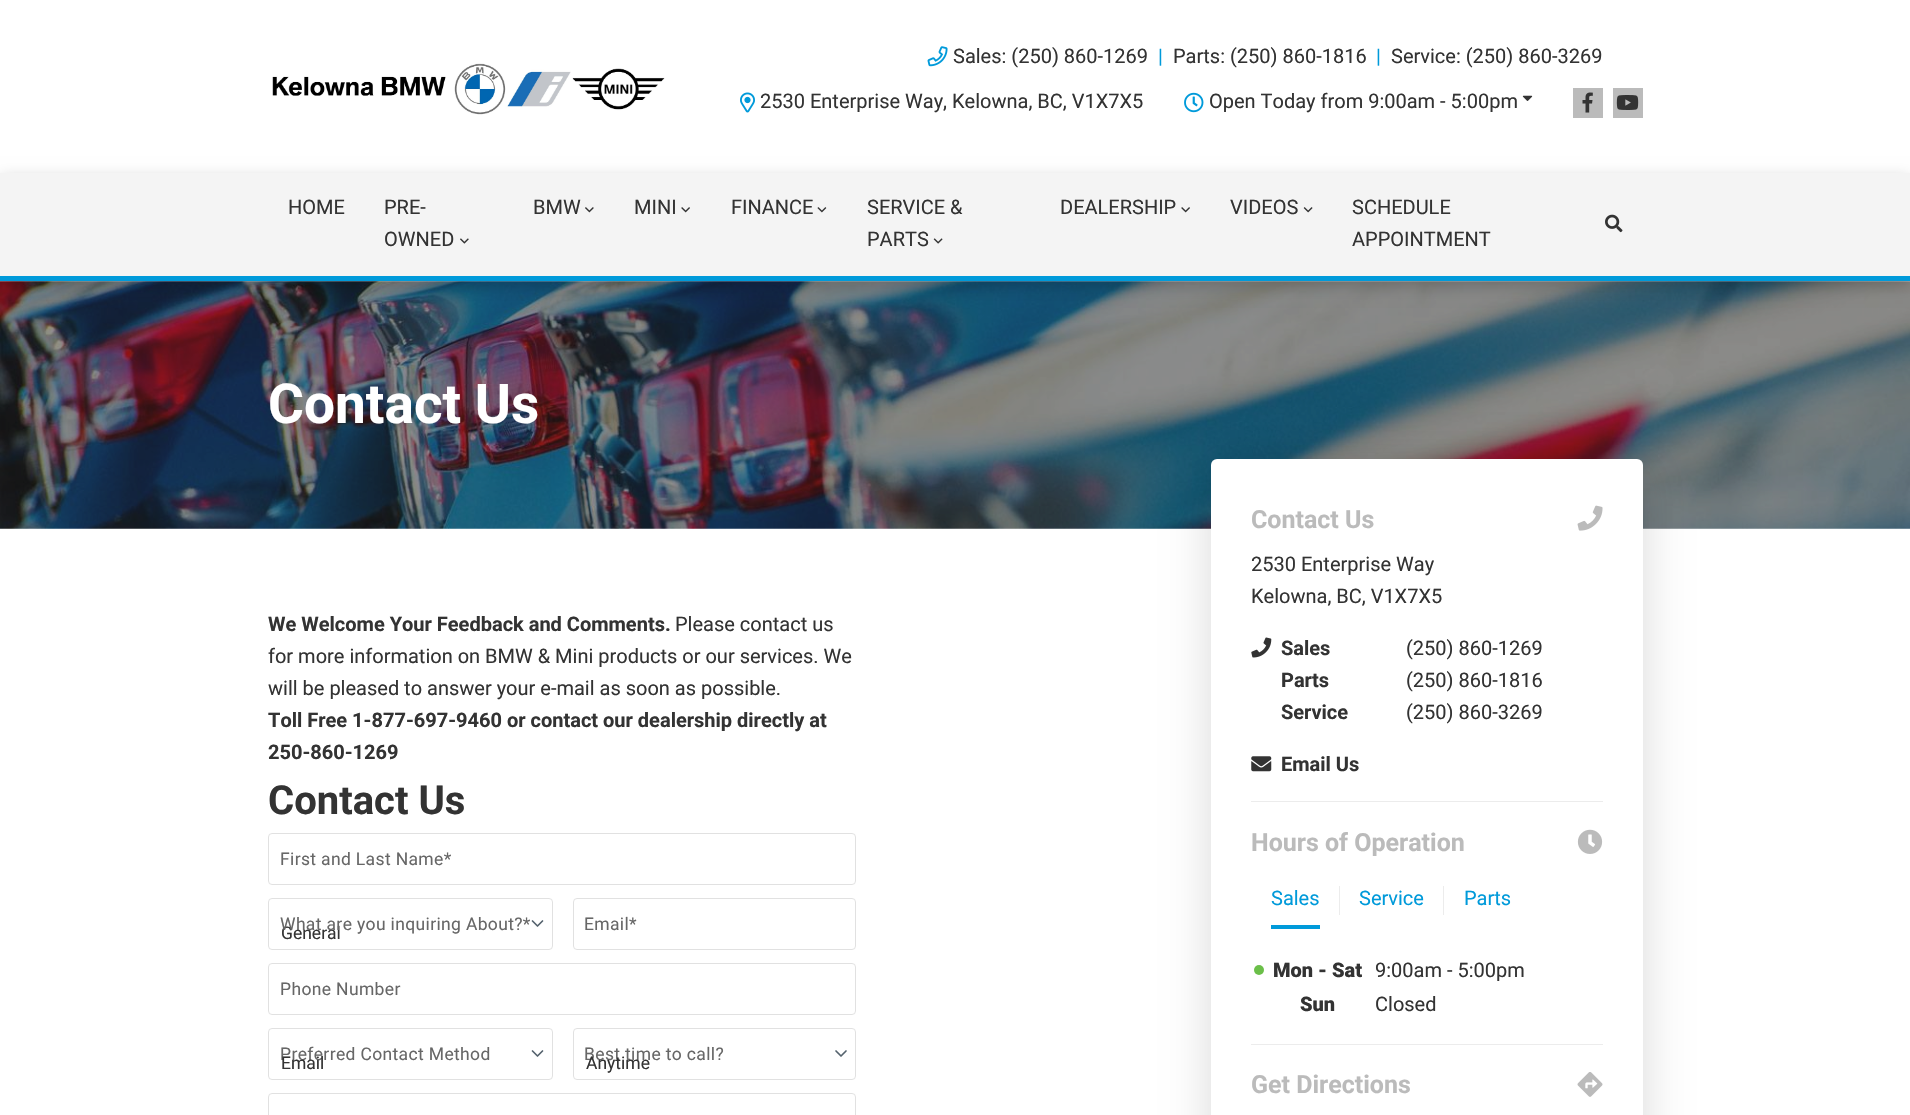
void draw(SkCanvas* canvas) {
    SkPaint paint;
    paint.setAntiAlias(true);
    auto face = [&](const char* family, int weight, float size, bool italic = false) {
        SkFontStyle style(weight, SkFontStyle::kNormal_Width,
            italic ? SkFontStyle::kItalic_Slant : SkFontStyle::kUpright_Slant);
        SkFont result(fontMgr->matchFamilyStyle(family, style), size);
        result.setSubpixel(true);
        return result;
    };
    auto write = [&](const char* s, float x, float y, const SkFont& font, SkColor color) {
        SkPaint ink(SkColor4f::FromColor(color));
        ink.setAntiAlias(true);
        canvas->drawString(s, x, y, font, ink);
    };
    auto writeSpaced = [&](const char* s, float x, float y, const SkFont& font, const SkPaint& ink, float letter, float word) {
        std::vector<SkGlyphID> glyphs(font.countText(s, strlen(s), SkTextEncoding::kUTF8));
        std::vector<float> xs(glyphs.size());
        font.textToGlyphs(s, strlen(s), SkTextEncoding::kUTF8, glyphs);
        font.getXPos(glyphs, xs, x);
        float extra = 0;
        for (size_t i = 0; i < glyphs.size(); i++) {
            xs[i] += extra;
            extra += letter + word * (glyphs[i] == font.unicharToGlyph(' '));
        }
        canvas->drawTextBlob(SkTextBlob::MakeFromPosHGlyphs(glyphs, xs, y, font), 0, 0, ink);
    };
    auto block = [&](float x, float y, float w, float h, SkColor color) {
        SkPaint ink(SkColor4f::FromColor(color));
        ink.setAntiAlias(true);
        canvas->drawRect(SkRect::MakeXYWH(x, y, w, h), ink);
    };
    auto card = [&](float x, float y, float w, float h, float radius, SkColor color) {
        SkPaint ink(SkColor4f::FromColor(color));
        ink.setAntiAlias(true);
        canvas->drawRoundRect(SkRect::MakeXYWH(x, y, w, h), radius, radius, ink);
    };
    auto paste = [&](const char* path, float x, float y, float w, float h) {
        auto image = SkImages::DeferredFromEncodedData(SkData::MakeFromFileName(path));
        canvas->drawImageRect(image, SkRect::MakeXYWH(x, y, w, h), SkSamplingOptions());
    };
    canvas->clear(SK_ColorWHITE);
    paste("pic1.png", 272, 63, 393, 52);
    paste("pic2.png", 927, 46, 21, 21);
    auto kFont1 = face("Roboto", 400, 20);
    write("Sales: (250) 860-1269", 953, 63, kFont1, SkColorSetRGB(51, 51, 51));
    write("|", 1158, 63, kFont1, SkColorSetRGB(0, 154, 218));
    write("Parts: (250) 860-1816", 1173, 63, kFont1, SkColorSetRGB(51, 51, 51));
    write("|", 1376, 63, kFont1, SkColorSetRGB(0, 154, 218));
    write("Service: (250) 860-3269", 1391, 63, kFont1, SkColorSetRGB(51, 51, 51));
    paste("pic3.png", 740, 92, 15, 21);
    write("2530 Enterprise Way, Kelowna, BC, V1X7X5", 760, 108, kFont1, SkColorSetRGB(51, 51, 51));
    paste("pic4.png", 1184, 92, 20, 21);
    write("Open Today from 9:00am - 5:00pm", 1209, 108, kFont1, SkColorSetRGB(51, 51, 51));
    paste("pic5.png", 1522, 95, 11, 6);
    block(1573, 88, 30, 30, SkColorSetRGB(187, 187, 187));
    paste("pic6.png", 1582, 92, 11, 21);
    block(1613, 88, 30, 30, SkColorSetRGB(187, 187, 187));
    paste("pic7.png", 1616, 95, 23, 15);
    paste("pic15.png", 0, 281, 1910, 248);
    paint.setColor(SkColorSetARGB(51, 0, 0, 0));
    paint.setMaskFilter(SkMaskFilter::MakeBlur(kNormal_SkBlurStyle, 7.5f));
    canvas->drawRect(SkRect::MakeXYWH(0, 178, 1910, 108), paint);
    paint.setMaskFilter(nullptr);
    block(0, 173, 1910, 103, SkColorSetRGB(244, 244, 244));
    block(0, 276, 1910, 5, SkColorSetRGB(0, 154, 218));
    write("HOME", 288, 214, kFont1, SkColorSetRGB(51, 51, 51));
    write("PRE-", 384, 214, kFont1, SkColorSetRGB(51, 51, 51));
    write("OWNED", 384, 246, kFont1, SkColorSetRGB(51, 51, 51));
    paste("pic8.png", 460, 238, 9, 6);
    write("BMW", 533, 214, kFont1, SkColorSetRGB(51, 51, 51));
    paste("pic9.png", 585, 207, 9, 6);
    write("MINI", 634, 214, kFont1, SkColorSetRGB(51, 51, 51));
    paste("pic10.png", 681, 207, 9, 6);
    write("FINANCE", 731, 214, kFont1, SkColorSetRGB(51, 51, 51));
    paste("pic11.png", 817, 207, 10, 6);
    write("SERVICE &", 867, 214, kFont1, SkColorSetRGB(51, 51, 51));
    write("PARTS", 867, 246, kFont1, SkColorSetRGB(51, 51, 51));
    paste("pic12.png", 933, 238, 10, 6);
    write("DEALERSHIP", 1060, 214, kFont1, SkColorSetRGB(51, 51, 51));
    paste("pic10.png", 1181, 207, 9, 6);
    write("VIDEOS", 1230, 214, kFont1, SkColorSetRGB(51, 51, 51));
    paste("pic13.png", 1303, 207, 10, 6);
    write("SCHEDULE", 1352, 214, kFont1, SkColorSetRGB(51, 51, 51));
    write("APPOINTMENT", 1352, 246, kFont1, SkColorSetRGB(51, 51, 51));
    paste("pic14.png", 1605, 214, 18, 19);
    auto kFont2 = face("Roboto", 700, 55);
    write("Contact Us", 268, 423, kFont2, SK_ColorWHITE);
    auto kFont3 = face("Roboto", 700, 20);
    write("We Welcome Your Feedback and Comments.", 268, 631, kFont3, SkColorSetRGB(51, 51, 51));
    write("Please contact us", 675, 631, kFont1, SkColorSetRGB(51, 51, 51));
    write("for more information on BMW & Mini products or our services. We", 268, 663, kFont1, SkColorSetRGB(51, 51, 51));
    write("will be pleased to answer your e-mail as soon as possible.", 268, 695, kFont1, SkColorSetRGB(51, 51, 51));
    write("Toll Free 1-877-697-9460 or contact our dealership directly at", 268, 727, kFont3, SkColorSetRGB(51, 51, 51));
    write("250-860-1269", 268, 759, kFont3, SkColorSetRGB(51, 51, 51));
    auto kFont4 = face("Roboto", 700, 40);
    write("Contact Us", 268, 814, kFont4, SkColorSetRGB(51, 51, 51));
    paint.setStyle(SkPaint::kStroke_Style);
    paint.setStrokeWidth(1);
    paint.setColor(SkColorSetRGB(225, 225, 225));
    canvas->drawRoundRect(SkRect::MakeXYWH(268.5f, 833.5f, 587, 51), 3.5f, 3.5f, paint);
    auto kFont5 = face("Roboto", 400, 17.5f);
    paint.setStyle(SkPaint::kFill_Style);
    paint.setColor(SkColorSetRGB(103, 103, 103));
    writeSpaced("First and Last Name*", 280, 865, kFont5, paint, 0.35f, 0);
    paint.setStyle(SkPaint::kStroke_Style);
    paint.setStrokeWidth(1.7f);
    paint.setStrokeCap(SkPaint::kRound_Cap);
    paint.setStrokeJoin(SkPaint::kRound_Join);
    paint.setColor(SkColorSetRGB(85, 99, 110));
    canvas->drawPath(SkPathBuilder().moveTo(532.5f, 921).lineTo(537.5f, 926).lineTo(542.5f, 921).detach(), paint);
    paint.setStrokeWidth(1);
    paint.setStrokeCap(SkPaint::kButt_Cap);
    paint.setStrokeJoin(SkPaint::kMiter_Join);
    paint.setColor(SkColorSetRGB(225, 225, 225));
    canvas->drawRoundRect(SkRect::MakeXYWH(268.5f, 898.5f, 284, 51), 3.5f, 3.5f, paint);
    write("General", 281, 939, kFont5, SkColorSetRGB(51, 51, 51));
    paint.setStyle(SkPaint::kFill_Style);
    paint.setColor(SkColorSetRGB(103, 103, 103));
    writeSpaced("What are you inquiring About?*", 280, 930, kFont5, paint, 0.35f, 0);
    paint.setStyle(SkPaint::kStroke_Style);
    paint.setColor(SkColorSetRGB(225, 225, 225));
    canvas->drawRoundRect(SkRect::MakeXYWH(573.5f, 898.5f, 282, 51), 3.5f, 3.5f, paint);
    paint.setStyle(SkPaint::kFill_Style);
    paint.setColor(SkColorSetRGB(103, 103, 103));
    writeSpaced("Email*", 584, 930, kFont5, paint, 0.35f, 0);
    paint.setStyle(SkPaint::kStroke_Style);
    paint.setColor(SkColorSetRGB(225, 225, 225));
    canvas->drawRoundRect(SkRect::MakeXYWH(268.5f, 963.5f, 587, 51), 3.5f, 3.5f, paint);
    paint.setStyle(SkPaint::kFill_Style);
    paint.setColor(SkColorSetRGB(103, 103, 103));
    writeSpaced("Phone Number", 280, 995, kFont5, paint, 0.35f, 0);
    paint.setStyle(SkPaint::kStroke_Style);
    paint.setStrokeWidth(1.7f);
    paint.setStrokeCap(SkPaint::kRound_Cap);
    paint.setStrokeJoin(SkPaint::kRound_Join);
    paint.setColor(SkColorSetRGB(85, 99, 110));
    canvas->drawPath(SkPathBuilder().moveTo(532.5f, 1051).lineTo(537.5f, 1056).lineTo(542.5f, 1051).detach(), paint);
    paint.setStrokeWidth(1);
    paint.setStrokeCap(SkPaint::kButt_Cap);
    paint.setStrokeJoin(SkPaint::kMiter_Join);
    paint.setColor(SkColorSetRGB(225, 225, 225));
    canvas->drawRoundRect(SkRect::MakeXYWH(268.5f, 1028.5f, 284, 51), 3.5f, 3.5f, paint);
    paint.setStyle(SkPaint::kFill_Style);
    paint.setColor(SkColorSetRGB(103, 103, 103));
    writeSpaced("Preferred Contact Method", 280, 1060, kFont5, paint, 0.35f, 0);
    write("Email", 281, 1069, kFont5, SkColorSetRGB(51, 51, 51));
    paint.setStyle(SkPaint::kStroke_Style);
    paint.setStrokeWidth(1.7f);
    paint.setStrokeCap(SkPaint::kRound_Cap);
    paint.setStrokeJoin(SkPaint::kRound_Join);
    paint.setColor(SkColorSetRGB(85, 99, 110));
    canvas->drawPath(SkPathBuilder().moveTo(836, 1051).lineTo(841, 1056).lineTo(846, 1051).detach(), paint);
    paint.setStrokeWidth(1);
    paint.setStrokeCap(SkPaint::kButt_Cap);
    paint.setStrokeJoin(SkPaint::kMiter_Join);
    paint.setColor(SkColorSetRGB(225, 225, 225));
    canvas->drawRoundRect(SkRect::MakeXYWH(573.5f, 1028.5f, 282, 51), 3.5f, 3.5f, paint);
    paint.setStyle(SkPaint::kFill_Style);
    paint.setColor(SkColorSetRGB(103, 103, 103));
    writeSpaced("Best time to call?", 584, 1060, kFont5, paint, 0.35f, 0);
    write("Anytime", 586, 1069, kFont5, SkColorSetRGB(51, 51, 51));
    paint.setStyle(SkPaint::kStroke_Style);
    paint.setColor(SkColorSetRGB(225, 225, 225));
    canvas->drawRoundRect(SkRect::MakeXYWH(268.5f, 1093.5f, 587, 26), 3.5f, 3.5f, paint);
    paint.setStyle(SkPaint::kFill_Style);
    paint.setColor(SkColorSetARGB(38, 0, 0, 0));
    paint.setMaskFilter(SkMaskFilter::MakeBlur(kNormal_SkBlurStyle, 22.5f));
    canvas->drawRoundRect(SkRect::MakeXYWH(1211, 466, 432, 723), 6, 6, paint);
    paint.setMaskFilter(nullptr);
    card(1211, 459, 432, 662, 6, SK_ColorWHITE);
    block(1251, 801, 352, 1, SkColorSetRGB(236, 236, 236));
    auto kFont6 = face("Roboto", 700, 25);
    write("Contact Us", 1251, 528, kFont6, SkColorSetRGB(187, 187, 187));
    paste("pic16.png", 1577, 505, 26, 26);
    write("2530 Enterprise Way", 1251, 571, kFont1, SkColorSetRGB(51, 51, 51));
    write("Kelowna, BC, V1X7X5", 1251, 603, kFont1, SkColorSetRGB(51, 51, 51));
    paste("pic17.png", 1251, 637, 21, 21);
    write("Sales", 1281, 655, kFont3, SkColorSetRGB(51, 51, 51));
    write("(250) 860-1269", 1406, 655, kFont1, SkColorSetRGB(51, 51, 51));
    write("Parts", 1281, 687, kFont3, SkColorSetRGB(51, 51, 51));
    write("(250) 860-1816", 1406, 687, kFont1, SkColorSetRGB(51, 51, 51));
    write("Service", 1281, 719, kFont3, SkColorSetRGB(51, 51, 51));
    write("(250) 860-3269", 1406, 719, kFont1, SkColorSetRGB(51, 51, 51));
    paste("pic18.png", 1251, 756, 21, 16);
    write("Email Us", 1281, 771, kFont3, SkColorSetRGB(51, 51, 51));
    block(1251, 1044, 352, 1, SkColorSetRGB(236, 236, 236));
    write("Hours of Operation", 1251, 851, kFont6, SkColorSetRGB(187, 187, 187));
    paste("pic19.png", 1577, 829, 26, 25);
    block(1271, 925, 49, 4, SkColorSetRGB(0, 154, 218));
    write("Sales", 1271, 905, kFont1, SkColorSetRGB(0, 154, 218));
    block(1339, 886, 1, 29, SkColorSetRGB(236, 236, 236));
    write("Service", 1359, 905, kFont1, SkColorSetRGB(0, 154, 218));
    block(1443, 886, 1, 29, SkColorSetRGB(236, 236, 236));
    write("Parts", 1464, 905, kFont1, SkColorSetRGB(0, 154, 218));
    paint.setColor(SkColorSetRGB(107, 191, 73));
    canvas->drawCircle(1259, 970, 5, paint);
    auto kFont7 = face("Roboto", 900, 20);
    write("Mon - Sat", 1273, 977, kFont7, SkColorSetRGB(51, 51, 51));
    write("9:00am - 5:00pm", 1375, 977, kFont1, SkColorSetRGB(51, 51, 51));
    write("Sun", 1300, 1011, kFont7, SkColorSetRGB(51, 51, 51));
    write("Closed", 1375, 1011, kFont1, SkColorSetRGB(51, 51, 51));
    write("Get Directions", 1251, 1093, kFont6, SkColorSetRGB(187, 187, 187));
    paste("pic20.png", 1577, 1072, 26, 25);
}
